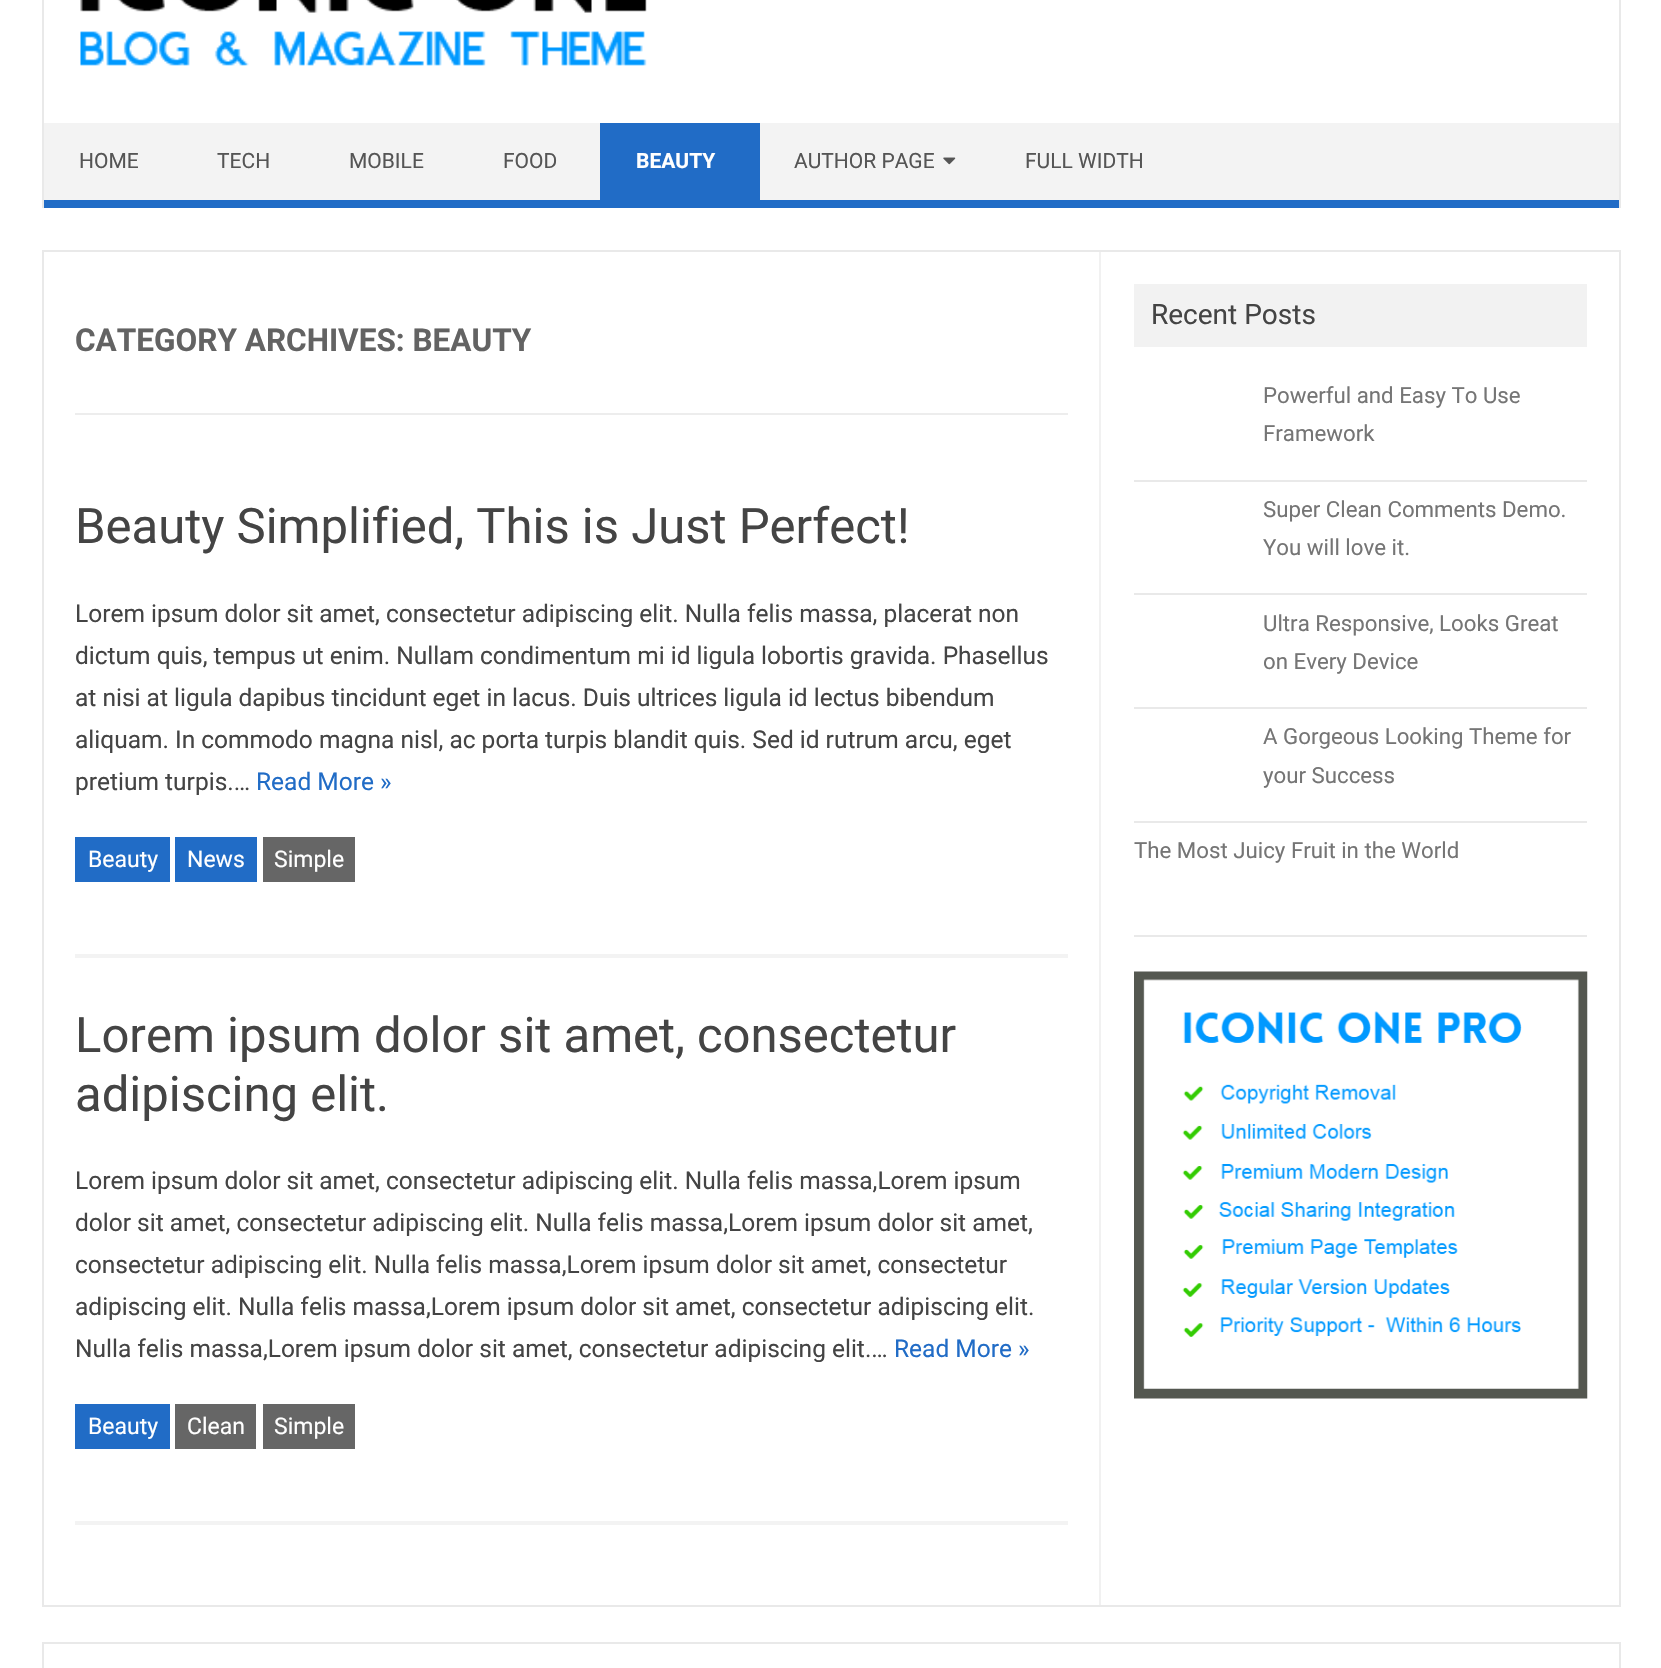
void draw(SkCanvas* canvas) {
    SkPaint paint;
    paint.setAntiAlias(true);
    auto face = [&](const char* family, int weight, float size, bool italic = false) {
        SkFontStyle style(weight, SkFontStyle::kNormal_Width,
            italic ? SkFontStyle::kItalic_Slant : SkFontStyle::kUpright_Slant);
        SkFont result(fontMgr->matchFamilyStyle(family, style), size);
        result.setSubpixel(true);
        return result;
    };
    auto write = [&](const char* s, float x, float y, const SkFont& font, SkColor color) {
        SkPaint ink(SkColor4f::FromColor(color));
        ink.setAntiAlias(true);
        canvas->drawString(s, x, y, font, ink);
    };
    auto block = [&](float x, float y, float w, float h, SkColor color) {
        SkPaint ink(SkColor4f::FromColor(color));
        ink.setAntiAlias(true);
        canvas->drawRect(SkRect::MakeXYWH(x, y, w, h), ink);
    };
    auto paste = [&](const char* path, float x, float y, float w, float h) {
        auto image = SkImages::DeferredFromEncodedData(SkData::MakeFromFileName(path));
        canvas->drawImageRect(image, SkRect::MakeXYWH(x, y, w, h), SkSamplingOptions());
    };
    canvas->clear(SK_ColorWHITE);
    block(1619, 0, 2, 208, SkColorSetRGB(233, 233, 233));
    block(42, 0, 2, 208, SkColorSetRGB(233, 233, 233));
    paste("pic1.png", 80, 0, 567, 66);
    block(44, 123, 1575, 77, SkColorSetRGB(243, 243, 243));
    block(44, 200, 1575, 8, SkColorSetRGB(33, 108, 198));
    auto kFont1 = face("Roboto", 400, 21);
    write("HOME", 79, 168, kFont1, SkColorSetRGB(85, 85, 85));
    write("TECH", 217, 168, kFont1, SkColorSetRGB(85, 85, 85));
    write("MOBILE", 349, 168, kFont1, SkColorSetRGB(85, 85, 85));
    write("FOOD", 503, 168, kFont1, SkColorSetRGB(85, 85, 85));
    block(600, 123, 160, 77, SkColorSetRGB(33, 108, 198));
    auto kFont2 = face("Roboto", 700, 21);
    write("BEAUTY", 636, 168, kFont2, SK_ColorWHITE);
    write("AUTHOR PAGE", 794, 168, kFont1, SkColorSetRGB(85, 85, 85));
    paste("pic2.png", 943, 157, 13, 8);
    write("FULL WIDTH", 1025, 168, kFont1, SkColorSetRGB(85, 85, 85));
    paint.setStyle(SkPaint::kStroke_Style);
    paint.setStrokeWidth(2);
    paint.setColor(SkColorSetRGB(233, 233, 233));
    canvas->drawRect(SkRect::MakeXYWH(43, 251, 1577, 1355), paint);
    block(1099, 252, 2, 1353, SkColorSetRGB(241, 241, 241));
    block(75, 413, 993, 2, SkColorSetRGB(237, 237, 237));
    auto kFont3 = face("Roboto", 700, 31.5f);
    write("CATEGORY ARCHIVES: BEAUTY", 75, 351, kFont3, SkColorSetRGB(99, 99, 99));
    block(75, 954, 993, 4, SkColorSetRGB(243, 243, 243));
    auto kFont4 = face("Roboto", 400, 49);
    write("Beauty Simplified, This is Just Perfect!", 75, 543, kFont4, SkColorSetRGB(68, 68, 68));
    auto kFont5 = face("Roboto", 400, 24.5f);
    write("Lorem ipsum dolor sit amet, consectetur adipiscing elit. Nulla felis massa, placerat non", 75, 622, kFont5, SkColorSetRGB(68, 68, 68));
    write("dictum quis, tempus ut enim. Nullam condimentum mi id ligula lobortis gravida. Phasellus", 75, 664, kFont5, SkColorSetRGB(68, 68, 68));
    write("at nisi at ligula dapibus tincidunt eget in lacus. Duis ultrices ligula id lectus bibendum", 75, 706, kFont5, SkColorSetRGB(68, 68, 68));
    write("aliquam. In commodo magna nisl, ac porta turpis blandit quis. Sed id rutrum arcu, eget", 75, 748, kFont5, SkColorSetRGB(68, 68, 68));
    write("pretium turpis.…", 75, 790, kFont5, SkColorSetRGB(68, 68, 68));
    write("Read More »", 256, 790, kFont5, SkColorSetRGB(33, 108, 198));
    block(75, 837, 95, 45, SkColorSetRGB(33, 108, 198));
    auto kFont6 = face("Roboto", 400, 23);
    write("Beauty", 88, 867, kFont6, SK_ColorWHITE);
    block(175, 837, 82, 45, SkColorSetRGB(33, 108, 198));
    write("News", 187, 867, kFont6, SK_ColorWHITE);
    block(263, 837, 92, 45, SkColorSetRGB(102, 102, 102));
    write("Simple", 274, 867, kFont6, SK_ColorWHITE);
    block(75, 1521, 993, 4, SkColorSetRGB(243, 243, 243));
    write("Lorem ipsum dolor sit amet, consectetur", 75, 1052, kFont4, SkColorSetRGB(68, 68, 68));
    write("adipiscing elit.", 75, 1111, kFont4, SkColorSetRGB(68, 68, 68));
    write("Lorem ipsum dolor sit amet, consectetur adipiscing elit. Nulla felis massa,Lorem ipsum", 75, 1189, kFont5, SkColorSetRGB(68, 68, 68));
    write("dolor sit amet, consectetur adipiscing elit. Nulla felis massa,Lorem ipsum dolor sit amet,", 75, 1231, kFont5, SkColorSetRGB(68, 68, 68));
    write("consectetur adipiscing elit. Nulla felis massa,Lorem ipsum dolor sit amet, consectetur", 75, 1273, kFont5, SkColorSetRGB(68, 68, 68));
    write("adipiscing elit. Nulla felis massa,Lorem ipsum dolor sit amet, consectetur adipiscing elit.", 75, 1315, kFont5, SkColorSetRGB(68, 68, 68));
    write("Nulla felis massa,Lorem ipsum dolor sit amet, consectetur adipiscing elit.…", 75, 1357, kFont5, SkColorSetRGB(68, 68, 68));
    write("Read More »", 894, 1357, kFont5, SkColorSetRGB(33, 108, 198));
    block(75, 1404, 95, 45, SkColorSetRGB(33, 108, 198));
    write("Beauty", 88, 1434, kFont6, SK_ColorWHITE);
    block(175, 1404, 81, 45, SkColorSetRGB(102, 102, 102));
    write("Clean", 187, 1434, kFont6, SK_ColorWHITE);
    block(263, 1404, 92, 45, SkColorSetRGB(102, 102, 102));
    write("Simple", 274, 1434, kFont6, SK_ColorWHITE);
    block(1134, 284, 453, 63, SkColorSetRGB(242, 242, 242));
    auto kFont7 = face("Roboto", 400, 28);
    write("Recent Posts", 1151, 324, kFont7, SkColorSetRGB(68, 68, 68));
    block(1134, 480, 453, 2, SkColorSetRGB(233, 233, 233));
    auto kFont8 = face("Roboto", 400, 22.25f);
    write("Powerful and Easy To Use", 1263, 403, kFont8, SkColorSetRGB(117, 117, 117));
    write("Framework", 1263, 441, kFont8, SkColorSetRGB(117, 117, 117));
    block(1134, 593, 453, 2, SkColorSetRGB(233, 233, 233));
    write("Super Clean Comments Demo.", 1263, 517, kFont8, SkColorSetRGB(117, 117, 117));
    write("You will love it.", 1263, 555, kFont8, SkColorSetRGB(117, 117, 117));
    block(1134, 707, 453, 2, SkColorSetRGB(233, 233, 233));
    write("Ultra Responsive, Looks Great", 1263, 631, kFont8, SkColorSetRGB(117, 117, 117));
    write("on Every Device", 1263, 669, kFont8, SkColorSetRGB(117, 117, 117));
    block(1134, 821, 453, 2, SkColorSetRGB(233, 233, 233));
    write("A Gorgeous Looking Theme for", 1263, 744, kFont8, SkColorSetRGB(117, 117, 117));
    write("your Success", 1263, 783, kFont8, SkColorSetRGB(117, 117, 117));
    block(1134, 935, 453, 2, SkColorSetRGB(233, 233, 233));
    write("The Most Juicy Fruit in the World", 1134, 858, kFont8, SkColorSetRGB(117, 117, 117));
    paste("pic3.png", 1134, 971, 454, 428);
    canvas->drawRect(SkRect::MakeXYWH(43, 1643, 1577, 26), paint);
}
